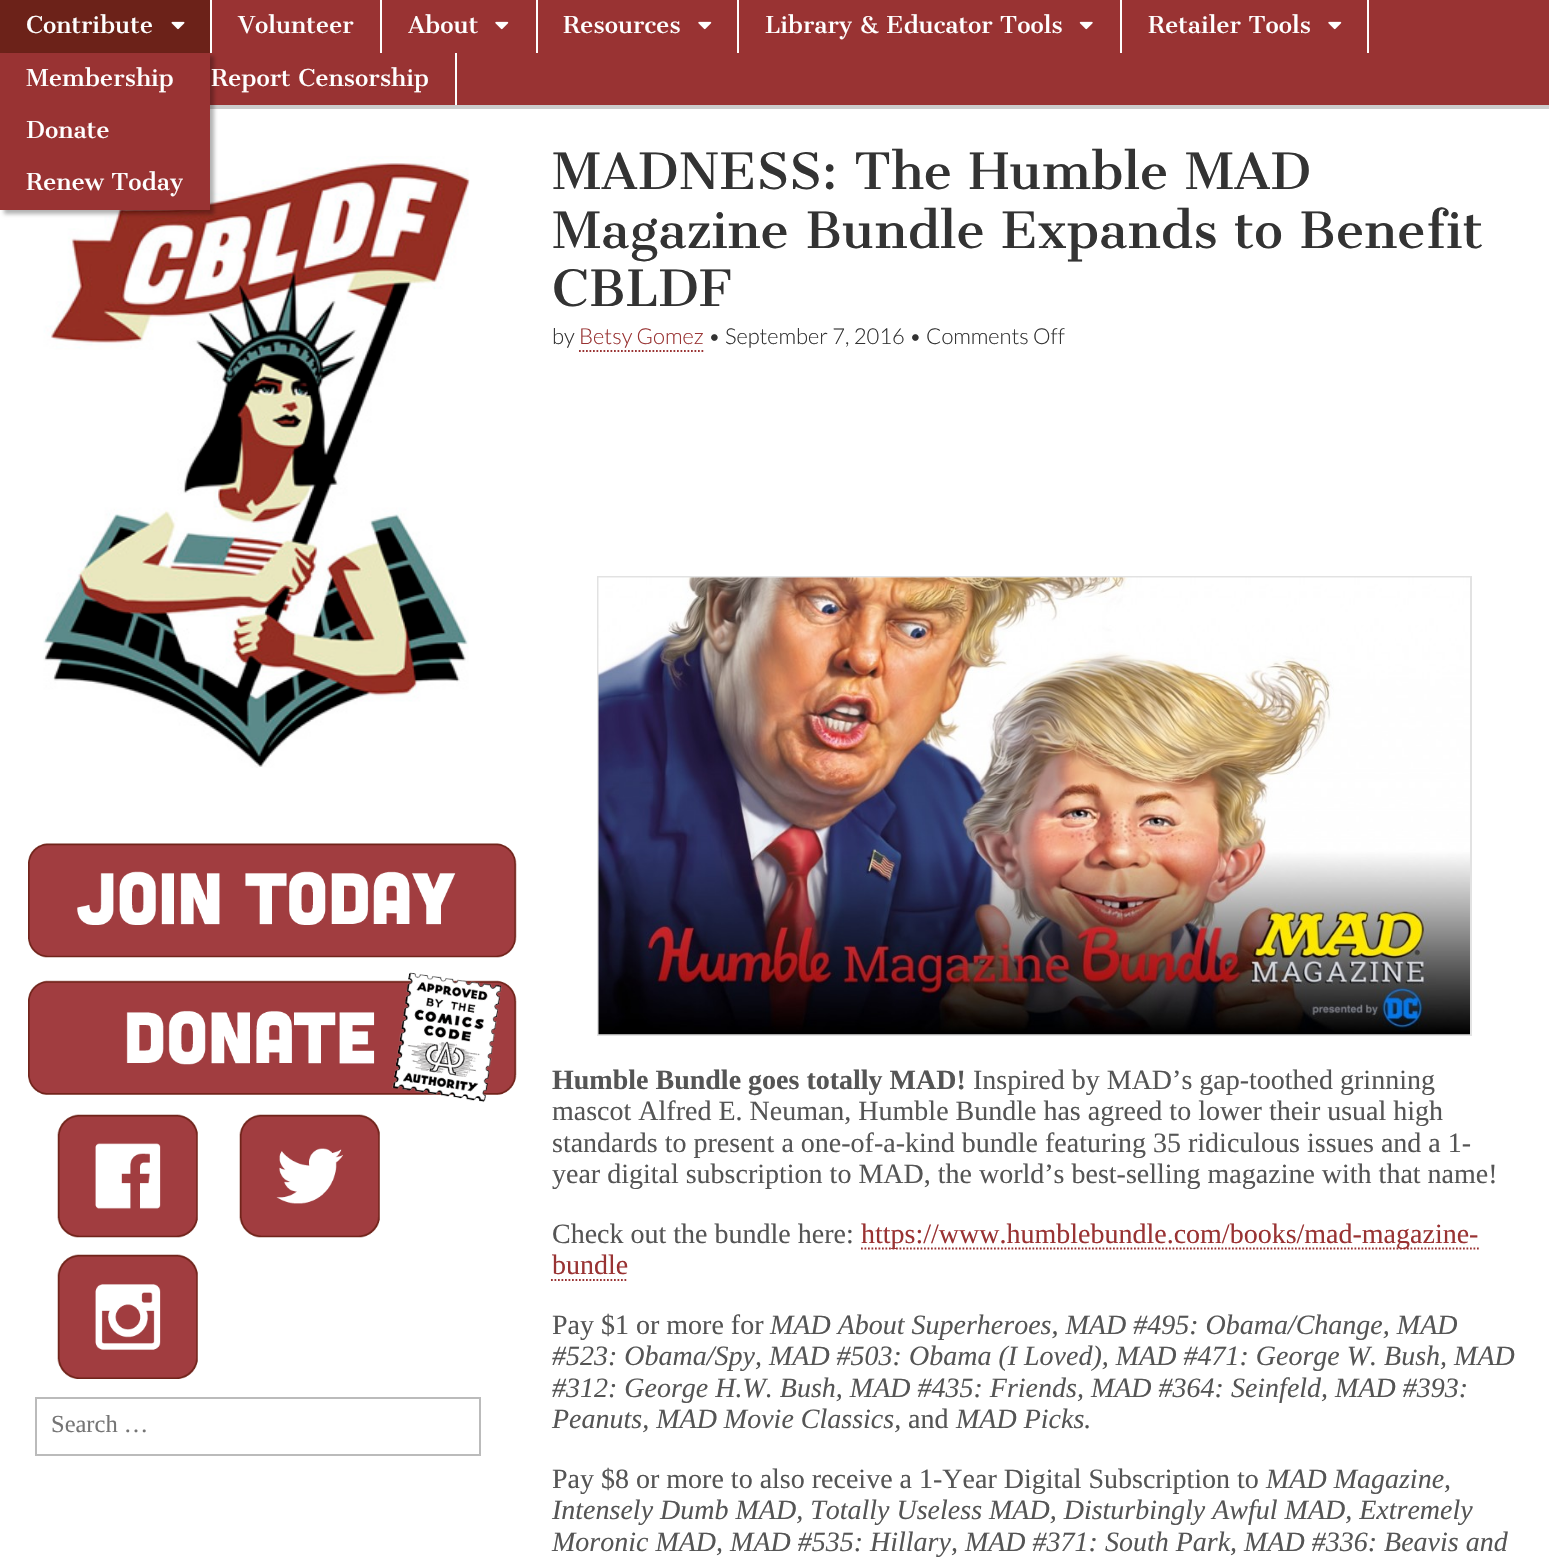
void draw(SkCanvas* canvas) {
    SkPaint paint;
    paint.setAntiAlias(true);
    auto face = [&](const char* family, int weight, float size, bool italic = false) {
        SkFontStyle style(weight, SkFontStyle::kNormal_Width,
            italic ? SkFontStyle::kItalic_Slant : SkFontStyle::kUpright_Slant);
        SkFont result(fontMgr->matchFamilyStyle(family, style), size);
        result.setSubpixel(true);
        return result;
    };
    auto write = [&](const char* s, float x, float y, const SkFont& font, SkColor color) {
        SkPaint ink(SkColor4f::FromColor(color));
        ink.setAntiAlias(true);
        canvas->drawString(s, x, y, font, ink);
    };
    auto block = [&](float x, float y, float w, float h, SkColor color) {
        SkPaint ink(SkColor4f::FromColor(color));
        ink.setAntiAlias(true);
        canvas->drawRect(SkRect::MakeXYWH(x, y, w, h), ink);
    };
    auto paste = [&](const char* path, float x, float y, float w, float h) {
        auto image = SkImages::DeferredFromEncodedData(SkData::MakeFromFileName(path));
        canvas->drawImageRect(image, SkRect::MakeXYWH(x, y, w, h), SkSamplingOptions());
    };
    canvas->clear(SK_ColorWHITE);
    block(210, 0, 1339, 105, SkColorSetRGB(153, 51, 51));
    block(0, 0, 210, 53, SkColorSetRGB(108, 34, 25));
    block(210, 0, 2, 53, SK_ColorWHITE);
    auto kFont1 = face("Cantata One", 400, 22.75f);
    write("Contribute", 26, 33, kFont1, SK_ColorWHITE);
    paste("pic1.png", 171, 21, 14, 9);
    block(210, 105, 1339, 4, SkColorSetRGB(204, 204, 204));
    paste("pic4.png", 43, 156, 427, 612);
    paint.setColor(SkColorSetARGB(77, 0, 0, 0));
    paint.setMaskFilter(SkMaskFilter::MakeBlur(kNormal_SkBlurStyle, 2));
    canvas->drawRect(SkRect::MakeXYWH(4, 56, 210, 158), paint);
    paint.setMaskFilter(nullptr);
    block(0, 53, 210, 157, SkColorSetRGB(153, 51, 51));
    write("Membership", 26, 86, kFont1, SK_ColorWHITE);
    write("Donate", 26, 138, kFont1, SK_ColorWHITE);
    write("Renew Today", 26, 190, kFont1, SK_ColorWHITE);
    block(380, 0, 2, 53, SK_ColorWHITE);
    write("Volunteer", 238, 33, kFont1, SK_ColorWHITE);
    block(536, 0, 2, 53, SK_ColorWHITE);
    write("About", 408, 33, kFont1, SK_ColorWHITE);
    paste("pic2.png", 495, 21, 14, 9);
    block(737, 0, 2, 53, SK_ColorWHITE);
    write("Resources", 563, 33, kFont1, SK_ColorWHITE);
    paste("pic2.png", 698, 21, 14, 9);
    block(1120, 0, 2, 53, SK_ColorWHITE);
    write("Library & Educator Tools", 765, 33, kFont1, SK_ColorWHITE);
    paste("pic3.png", 1079, 21, 14, 9);
    block(1367, 0, 2, 53, SK_ColorWHITE);
    write("Retailer Tools", 1148, 33, kFont1, SK_ColorWHITE);
    paste("pic2.png", 1328, 21, 14, 9);
    block(455, 53, 2, 52, SK_ColorWHITE);
    write("Report Censorship", 211, 86, kFont1, SK_ColorWHITE);
    paste("pic5.png", 28, 843, 489, 115);
    paste("pic6.png", 28, 972, 489, 131);
    paste("pic7.png", 57, 1114, 141, 124);
    paste("pic8.png", 239, 1114, 141, 124);
    paste("pic9.png", 57, 1254, 141, 125);
    paint.setStyle(SkPaint::kStroke_Style);
    paint.setStrokeWidth(2);
    paint.setColor(SkColorSetRGB(187, 187, 187));
    canvas->drawRect(SkRect::MakeXYWH(36, 1398, 444, 57), paint);
    auto kFont2 = face("Liberation Serif", 400, 24.5f);
    write("Search …", 51, 1432, kFont2, SkColorSetRGB(117, 117, 117));
    auto kFont3 = face("Cantata One", 400, 49);
    write("MADNESS: The Humble MAD", 552, 189, kFont3, SkColorSetRGB(51, 51, 51));
    write("Magazine Bundle Expands to Benefit", 552, 248, kFont3, SkColorSetRGB(51, 51, 51));
    write("CBLDF", 552, 306, kFont3, SkColorSetRGB(51, 51, 51));
    auto kFont4 = face("Lato", 300, 22);
    write("by", 552, 344, kFont4, SkColorSetRGB(51, 51, 51));
    write("Betsy Gomez", 579, 344, kFont4, SkColorSetRGB(153, 51, 51));
    paint.setStrokeWidth(1.8f);
    paint.setColor(SkColorSetRGB(153, 51, 51));
    paint.setPathEffect(SkDashPathEffect::Make({{1.75f, 1.75f}}, 0));
    canvas->drawPath(SkPathBuilder().moveTo(579, 351).lineTo(703.5f, 351).detach(), paint);
    paint.setPathEffect(nullptr);
    write("• September 7, 2016 • Comments Off", 708, 344, kFont4, SkColorSetRGB(51, 51, 51));
    paint.setStrokeWidth(2);
    paint.setColor(SkColorSetRGB(226, 226, 226));
    canvas->drawRect(SkRect::MakeXYWH(598, 577, 873, 458), paint);
    paste("pic10.png", 598, 577, 872, 458);
    auto kFont5 = face("Liberation Serif", 700, 28);
    write("Humble Bundle goes totally MAD!", 552, 1089, kFont5, SkColorSetRGB(85, 85, 85));
    auto kFont6 = face("Liberation Serif", 400, 28);
    write("Inspired by MAD’s gap-toothed grinning", 973, 1089, kFont6, SkColorSetRGB(85, 85, 85));
    write("mascot Alfred E. Neuman, Humble Bundle has agreed to lower their usual high", 552, 1120, kFont6, SkColorSetRGB(85, 85, 85));
    write("standards to present a one-of-a-kind bundle featuring 35 ridiculous issues and a 1-", 552, 1152, kFont6, SkColorSetRGB(85, 85, 85));
    write("year digital subscription to MAD, the world’s best-selling magazine with that name!", 552, 1183, kFont6, SkColorSetRGB(85, 85, 85));
    write("Check out the bundle here:", 552, 1243, kFont6, SkColorSetRGB(85, 85, 85));
    paint.setStrokeWidth(1.8f);
    paint.setColor(SkColorSetRGB(153, 51, 51));
    paint.setPathEffect(SkDashPathEffect::Make({{1.75f, 1.75f}}, 0));
    canvas->drawPath(SkPathBuilder().moveTo(861, 1248.5f).lineTo(1479, 1248.5f).detach(), paint);
    paint.setPathEffect(nullptr);
    write("https://www.humblebundle.com/books/mad-magazine-", 861, 1243, kFont6, SkColorSetRGB(153, 51, 51));
    write("bundle", 552, 1274, kFont6, SkColorSetRGB(153, 51, 51));
    paint.setPathEffect(SkDashPathEffect::Make({{1.75f, 1.75f}}, 0));
    canvas->drawPath(SkPathBuilder().moveTo(551, 1280).lineTo(628, 1280).detach(), paint);
    paint.setPathEffect(nullptr);
    write("Pay $1 or more for", 552, 1334, kFont6, SkColorSetRGB(85, 85, 85));
    auto kFont7 = face("Liberation Serif", 400, 28, true);
    write("MAD About Superheroes, MAD #495: Obama/Change, MAD", 770, 1334, kFont7, SkColorSetRGB(85, 85, 85));
    write("#523: Obama/Spy, MAD #503: Obama (I Loved), MAD #471: George W. Bush, MAD", 552, 1365, kFont7, SkColorSetRGB(85, 85, 85));
    write("#312: George H.W. Bush, MAD #435: Friends, MAD #364: Seinfeld, MAD #393:", 552, 1397, kFont7, SkColorSetRGB(85, 85, 85));
    write("Peanuts, MAD Movie Classics,", 552, 1428, kFont7, SkColorSetRGB(85, 85, 85));
    write("and", 908, 1428, kFont6, SkColorSetRGB(85, 85, 85));
    write("MAD Picks.", 956, 1428, kFont7, SkColorSetRGB(85, 85, 85));
    write("Pay $8 or more to also receive a 1-Year Digital Subscription to", 552, 1488, kFont6, SkColorSetRGB(85, 85, 85));
    write("MAD Magazine,", 1266, 1488, kFont7, SkColorSetRGB(85, 85, 85));
    write("Intensely Dumb MAD, Totally Useless MAD, Disturbingly Awful MAD, Extremely", 552, 1519, kFont7, SkColorSetRGB(85, 85, 85));
    write("Moronic MAD, MAD #535: Hillary, MAD #371: South Park, MAD #336: Beavis and", 552, 1551, kFont7, SkColorSetRGB(85, 85, 85));
}
